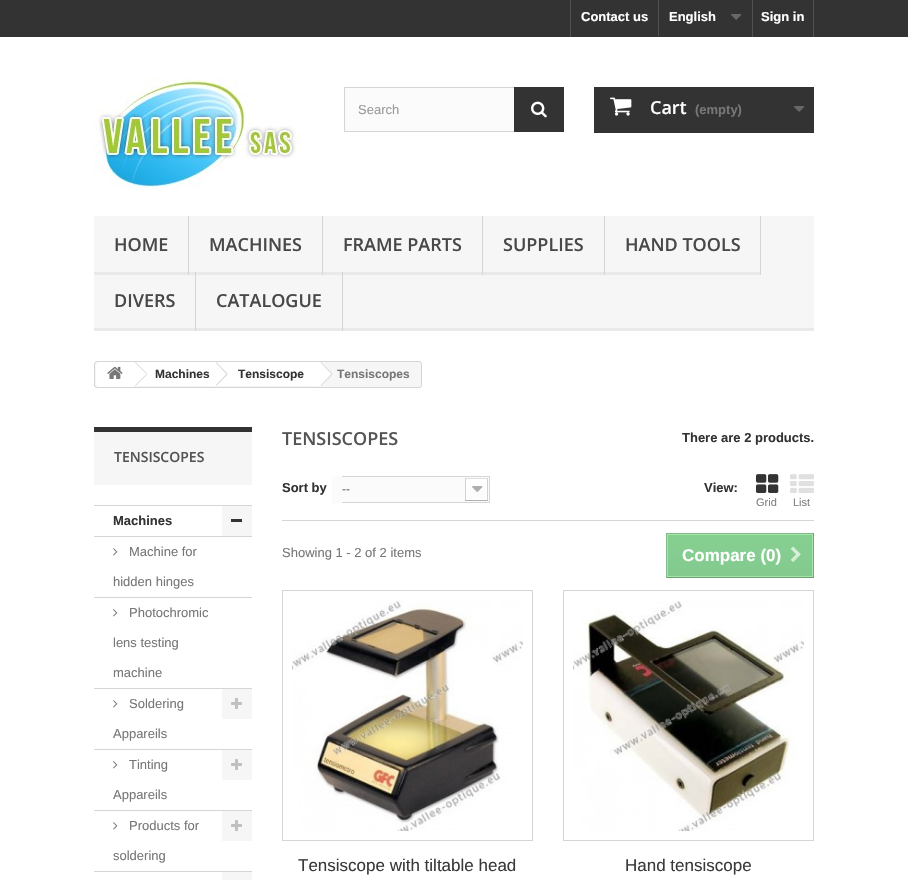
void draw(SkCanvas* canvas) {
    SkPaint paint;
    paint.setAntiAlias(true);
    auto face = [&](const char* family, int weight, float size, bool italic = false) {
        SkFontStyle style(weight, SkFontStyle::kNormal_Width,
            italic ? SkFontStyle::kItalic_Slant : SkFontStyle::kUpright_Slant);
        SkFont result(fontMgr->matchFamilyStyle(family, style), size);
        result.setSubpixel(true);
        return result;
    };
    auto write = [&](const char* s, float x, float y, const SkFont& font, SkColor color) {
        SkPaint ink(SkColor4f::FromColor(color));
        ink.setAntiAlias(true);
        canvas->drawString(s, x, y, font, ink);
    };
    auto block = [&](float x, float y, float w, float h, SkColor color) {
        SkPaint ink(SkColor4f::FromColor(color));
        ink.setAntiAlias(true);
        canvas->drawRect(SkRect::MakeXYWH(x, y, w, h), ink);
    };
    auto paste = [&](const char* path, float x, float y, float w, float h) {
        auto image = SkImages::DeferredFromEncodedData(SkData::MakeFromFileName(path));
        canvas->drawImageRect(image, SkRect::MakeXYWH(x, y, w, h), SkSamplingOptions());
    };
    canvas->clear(SK_ColorWHITE);
    block(0, 0, 908, 37, SkColorSetRGB(51, 51, 51));
    block(570, 0, 1, 37, SkColorSetRGB(81, 81, 81));
    auto kFont1 = face("Liberation Sans", 700, 13);
    write("Contact us", 581, 21, kFont1, SK_ColorWHITE);
    block(658, 0, 1, 36, SkColorSetRGB(81, 81, 81));
    write("English", 669, 21, kFont1, SK_ColorWHITE);
    paste("pic1.png", 731, 14, 11, 6);
    block(813, 0, 1, 37, SkColorSetRGB(81, 81, 81));
    block(752, 0, 1, 37, SkColorSetRGB(81, 81, 81));
    write("Sign in", 761, 21, kFont1, SK_ColorWHITE);
    paste("pic2.png", 94, 77, 206, 112);
    block(345, 88, 169, 43, SkColorSetRGB(251, 251, 251));
    paint.setStyle(SkPaint::kStroke_Style);
    paint.setStrokeWidth(1);
    paint.setColor(SkColorSetRGB(214, 212, 212));
    canvas->drawRect(SkRect::MakeXYWH(344.5f, 87.5f, 219, 44), paint);
    auto kFont2 = face("Liberation Sans", 400, 13);
    write("Search", 358, 114, kFont2, SkColorSetRGB(153, 153, 153));
    block(514, 87, 50, 45, SkColorSetRGB(51, 51, 51));
    paste("pic3.png", 531, 101, 16, 17);
    block(594, 87, 220, 46, SkColorSetRGB(51, 51, 51));
    paste("pic4.png", 610, 97, 22, 19);
    auto kFont3 = face("Open Sans", 600, 18);
    write("Cart", 650, 114, kFont3, SK_ColorWHITE);
    write("(empty)", 695, 114, kFont1, SkColorSetRGB(119, 119, 119));
    paste("pic1.png", 794, 106, 11, 6);
    block(94, 216, 720, 112, SkColorSetRGB(246, 246, 246));
    block(94, 328, 720, 3, SkColorSetRGB(233, 233, 233));
    block(188, 216, 1, 59, SkColorSetRGB(214, 212, 212));
    block(94, 272, 94, 3, SkColorSetRGB(233, 233, 233));
    write("HOME", 114, 251, kFont3, SkColorSetRGB(72, 72, 72));
    block(322, 216, 1, 59, SkColorSetRGB(214, 212, 212));
    block(189, 272, 133, 3, SkColorSetRGB(233, 233, 233));
    write("MACHINES", 209, 251, kFont3, SkColorSetRGB(72, 72, 72));
    block(482, 216, 1, 59, SkColorSetRGB(214, 212, 212));
    block(323, 272, 159, 3, SkColorSetRGB(233, 233, 233));
    write("FRAME PARTS", 343, 251, kFont3, SkColorSetRGB(72, 72, 72));
    block(604, 216, 1, 59, SkColorSetRGB(214, 212, 212));
    block(483, 272, 121, 3, SkColorSetRGB(233, 233, 233));
    write("SUPPLIES", 503, 251, kFont3, SkColorSetRGB(72, 72, 72));
    block(760, 216, 1, 59, SkColorSetRGB(214, 212, 212));
    block(605, 272, 155, 3, SkColorSetRGB(233, 233, 233));
    write("HAND TOOLS", 625, 251, kFont3, SkColorSetRGB(72, 72, 72));
    block(195, 272, 1, 59, SkColorSetRGB(214, 212, 212));
    write("DIVERS", 114, 307, kFont3, SkColorSetRGB(72, 72, 72));
    block(342, 272, 1, 59, SkColorSetRGB(214, 212, 212));
    write("CATALOGUE", 216, 307, kFont3, SkColorSetRGB(72, 72, 72));
    paint.setStyle(SkPaint::kFill_Style);
    paint.setColor(SkColorSetRGB(246, 246, 246));
    canvas->drawRoundRect(SkRect::MakeXYWH(94.5f, 361.5f, 327, 26), 2.5f, 2.5f, paint);
    paint.setStyle(SkPaint::kStroke_Style);
    paint.setColor(SkColorSetRGB(214, 212, 212));
    canvas->drawRoundRect(SkRect::MakeXYWH(94.5f, 361.5f, 327, 26), 2.5f, 2.5f, paint);
    paint.setStyle(SkPaint::kFill_Style);
    paint.setColor(SK_ColorWHITE);
    canvas->drawPath(SkPathBuilder().moveTo(99, 362).lineTo(134, 362).lineTo(134, 387).lineTo(99, 387).cubicTo(97.5f, 387, 96, 385.5f, 96, 384).lineTo(96, 365).cubicTo(96, 363.5f, 97.5f, 362, 99, 362).close().detach(), paint);
    paste("pic5.png", 107, 366, 16, 13);
    block(134, 362, 82, 24, SK_ColorWHITE);
    paint.setColor(SkColorSetRGB(214, 212, 212));
    canvas->drawPath(SkPathBuilder().moveTo(135.5f, 362).lineTo(147, 373.5f).lineTo(146.5f, 374).lineTo(135, 362.5f).close().moveTo(146.5f, 374).lineTo(147, 374.5f).lineTo(135.5f, 386).lineTo(135, 385.5f).close().detach(), paint);
    auto kFont4 = face("Liberation Sans", 700, 12);
    write("Machines", 155, 378, kFont4, SkColorSetRGB(51, 51, 51));
    paint.setColor(SK_ColorWHITE);
    canvas->drawPath(SkPathBuilder().moveTo(227, 362.5f).lineTo(236.5f, 372.5f).cubicTo(237.5f, 373.5f, 237.5f, 374.5f, 236.5f, 375.5f).lineTo(227, 385.5f).cubicTo(226, 386, 224.5f, 386, 224, 385.5f).lineTo(214, 375.5f).cubicTo(213.5f, 374.5f, 213.5f, 373.5f, 214, 372.5f).lineTo(224, 362.5f).cubicTo(224.5f, 362, 226, 362, 227, 362.5f).close().detach(), paint);
    block(216, 362, 103, 24, SK_ColorWHITE);
    paint.setColor(SkColorSetRGB(214, 212, 212));
    canvas->drawPath(SkPathBuilder().moveTo(216, 362).lineTo(227.5f, 373.5f).lineTo(226.5f, 374).lineTo(215.5f, 362.5f).close().moveTo(226.5f, 374).lineTo(227.5f, 374.5f).lineTo(216, 386).lineTo(215.5f, 385.5f).close().detach(), paint);
    write("Tensiscope", 238, 378, kFont4, SkColorSetRGB(51, 51, 51));
    paint.setColor(SK_ColorWHITE);
    canvas->drawPath(SkPathBuilder().moveTo(322, 362.5f).lineTo(331.5f, 372.5f).cubicTo(332.5f, 373.5f, 332.5f, 374.5f, 331.5f, 375.5f).lineTo(322, 385.5f).cubicTo(321, 386, 320, 386, 319, 385.5f).lineTo(309, 375.5f).cubicTo(308.5f, 374.5f, 308.5f, 373.5f, 309, 372.5f).lineTo(319, 362.5f).cubicTo(320, 362, 321, 362, 322, 362.5f).close().detach(), paint);
    paint.setColor(SkColorSetRGB(214, 212, 212));
    canvas->drawPath(SkPathBuilder().moveTo(321, 362).lineTo(332.5f, 373.5f).lineTo(331.5f, 374).lineTo(320.5f, 362.5f).close().moveTo(331.5f, 374).lineTo(332.5f, 374.5f).lineTo(321, 386).lineTo(320.5f, 385.5f).close().detach(), paint);
    write("Tensiscopes", 337, 378, kFont4, SkColorSetRGB(119, 119, 119));
    block(94, 432, 158, 53, SkColorSetRGB(246, 246, 246));
    block(94, 427, 158, 5, SkColorSetRGB(51, 51, 51));
    auto kFont5 = face("Open Sans", 600, 14);
    write("TENSISCOPES", 114, 462, kFont5, SkColorSetRGB(85, 84, 84));
    block(94, 505, 158, 1, SkColorSetRGB(214, 212, 212));
    block(94, 536, 158, 1, SkColorSetRGB(214, 212, 212));
    write("Machines", 113, 525, kFont1, SkColorSetRGB(51, 51, 51));
    block(222, 506, 30, 30, SkColorSetRGB(246, 246, 246));
    block(231, 519, 11, 3, SkColorSetRGB(51, 51, 51));
    block(94, 597, 158, 1, SkColorSetRGB(214, 212, 212));
    paste("pic6.png", 113, 548, 5, 8);
    write("Machine for", 129, 556, kFont2, SkColorSetRGB(119, 119, 119));
    write("hidden hinges", 113, 586, kFont2, SkColorSetRGB(119, 119, 119));
    block(94, 688, 158, 1, SkColorSetRGB(214, 212, 212));
    paste("pic6.png", 113, 609, 5, 8);
    write("Photochromic", 129, 617, kFont2, SkColorSetRGB(119, 119, 119));
    write("lens testing", 113, 647, kFont2, SkColorSetRGB(119, 119, 119));
    write("machine", 113, 677, kFont2, SkColorSetRGB(119, 119, 119));
    block(94, 749, 158, 1, SkColorSetRGB(214, 212, 212));
    paste("pic6.png", 113, 700, 5, 8);
    write("Soldering", 129, 708, kFont2, SkColorSetRGB(119, 119, 119));
    write("Appareils", 113, 738, kFont2, SkColorSetRGB(119, 119, 119));
    block(222, 689, 30, 30, SkColorSetRGB(246, 246, 246));
    paste("pic7.png", 231, 698, 11, 11);
    block(94, 810, 158, 1, SkColorSetRGB(214, 212, 212));
    paste("pic6.png", 113, 761, 5, 8);
    write("Tinting", 129, 769, kFont2, SkColorSetRGB(119, 119, 119));
    write("Appareils", 113, 799, kFont2, SkColorSetRGB(119, 119, 119));
    block(222, 750, 30, 30, SkColorSetRGB(246, 246, 246));
    paste("pic7.png", 231, 759, 11, 11);
    block(94, 871, 158, 1, SkColorSetRGB(214, 212, 212));
    paste("pic6.png", 113, 822, 5, 8);
    write("Products for", 129, 830, kFont2, SkColorSetRGB(119, 119, 119));
    write("soldering", 113, 860, kFont2, SkColorSetRGB(119, 119, 119));
    block(222, 811, 30, 30, SkColorSetRGB(246, 246, 246));
    paste("pic7.png", 231, 820, 11, 11);
    block(222, 872, 30, 8, SkColorSetRGB(246, 246, 246));
    write("TENSISCOPES", 282, 445, kFont3, SkColorSetRGB(85, 84, 84));
    write("There are 2 products.", 682, 442, kFont1, SkColorSetRGB(51, 51, 51));
    block(282, 520, 532, 1, SkColorSetRGB(214, 212, 212));
    write("Sort by", 282, 492, kFont1, SkColorSetRGB(51, 51, 51));
    block(332, 476, 10, 27, SkColorSetRGB(251, 251, 251));
    paste("pic8.png", 342, 476, 148, 27);
    auto kFont6 = face("Liberation Sans", 400, 12);
    write("--", 342, 493, kFont6, SkColorSetRGB(102, 102, 102));
    write("View:", 704, 492, kFont1, SkColorSetRGB(51, 51, 51));
    paste("pic9.png", 756, 474, 23, 19);
    auto kFont7 = face("Liberation Sans", 400, 11);
    write("Grid", 756, 506, kFont7, SkColorSetRGB(128, 128, 128));
    paste("pic10.png", 790, 474, 24, 19);
    write("List", 793, 506, kFont7, SkColorSetRGB(128, 128, 128));
    write("Showing 1 - 2 of 2 items", 282, 557, kFont2, SkColorSetRGB(119, 119, 119));
    {
        const SkColor colors[] = {SkColorSetRGB(133, 208, 144), SkColorSetRGB(132, 201, 143)};
        const float stops[] = {0, 1};
        const SkPoint ends[] = {{740, 534}, {740, 577}};
        paint.setShader(SkGradientShader::MakeLinear(ends, colors, stops, 2, SkTileMode::kClamp));
        paint.setAlpha(255);
    }
    canvas->drawRect(SkRect::MakeXYWH(668, 535, 144, 41), paint);
    block(666, 533, 148, 1, SkColorSetRGB(126, 189, 137));
    block(813, 533, 1, 45, SkColorSetRGB(113, 172, 122));
    block(666, 577, 148, 1, SkColorSetRGB(106, 160, 115));
    block(666, 533, 1, 45, SkColorSetRGB(126, 189, 137));
    paint.setStyle(SkPaint::kStroke_Style);
    paint.setShader(nullptr);
    paint.setColor(SkColorSetRGB(165, 228, 167));
    canvas->drawRect(SkRect::MakeXYWH(667.5f, 534.5f, 145, 42), paint);
    auto kFont8 = face("Liberation Sans", 700, 17);
    write("Compare (0)", 682, 561, kFont8, SK_ColorWHITE);
    paste("pic11.png", 791, 546, 10, 16);
    paint.setColor(SkColorSetRGB(214, 212, 212));
    canvas->drawRect(SkRect::MakeXYWH(282.5f, 590.5f, 250, 250), paint);
    paste("pic12.png", 292, 600, 231, 231);
    auto kFont9 = face("Liberation Sans", 400, 17);
    write("Tensiscope with tiltable head", 298, 871, kFont9, SkColorSetRGB(58, 57, 57));
    canvas->drawRect(SkRect::MakeXYWH(563.5f, 590.5f, 250, 250), paint);
    paste("pic13.png", 573, 601, 231, 230);
    write("Hand tensiscope", 625, 871, kFont9, SkColorSetRGB(58, 57, 57));
}
